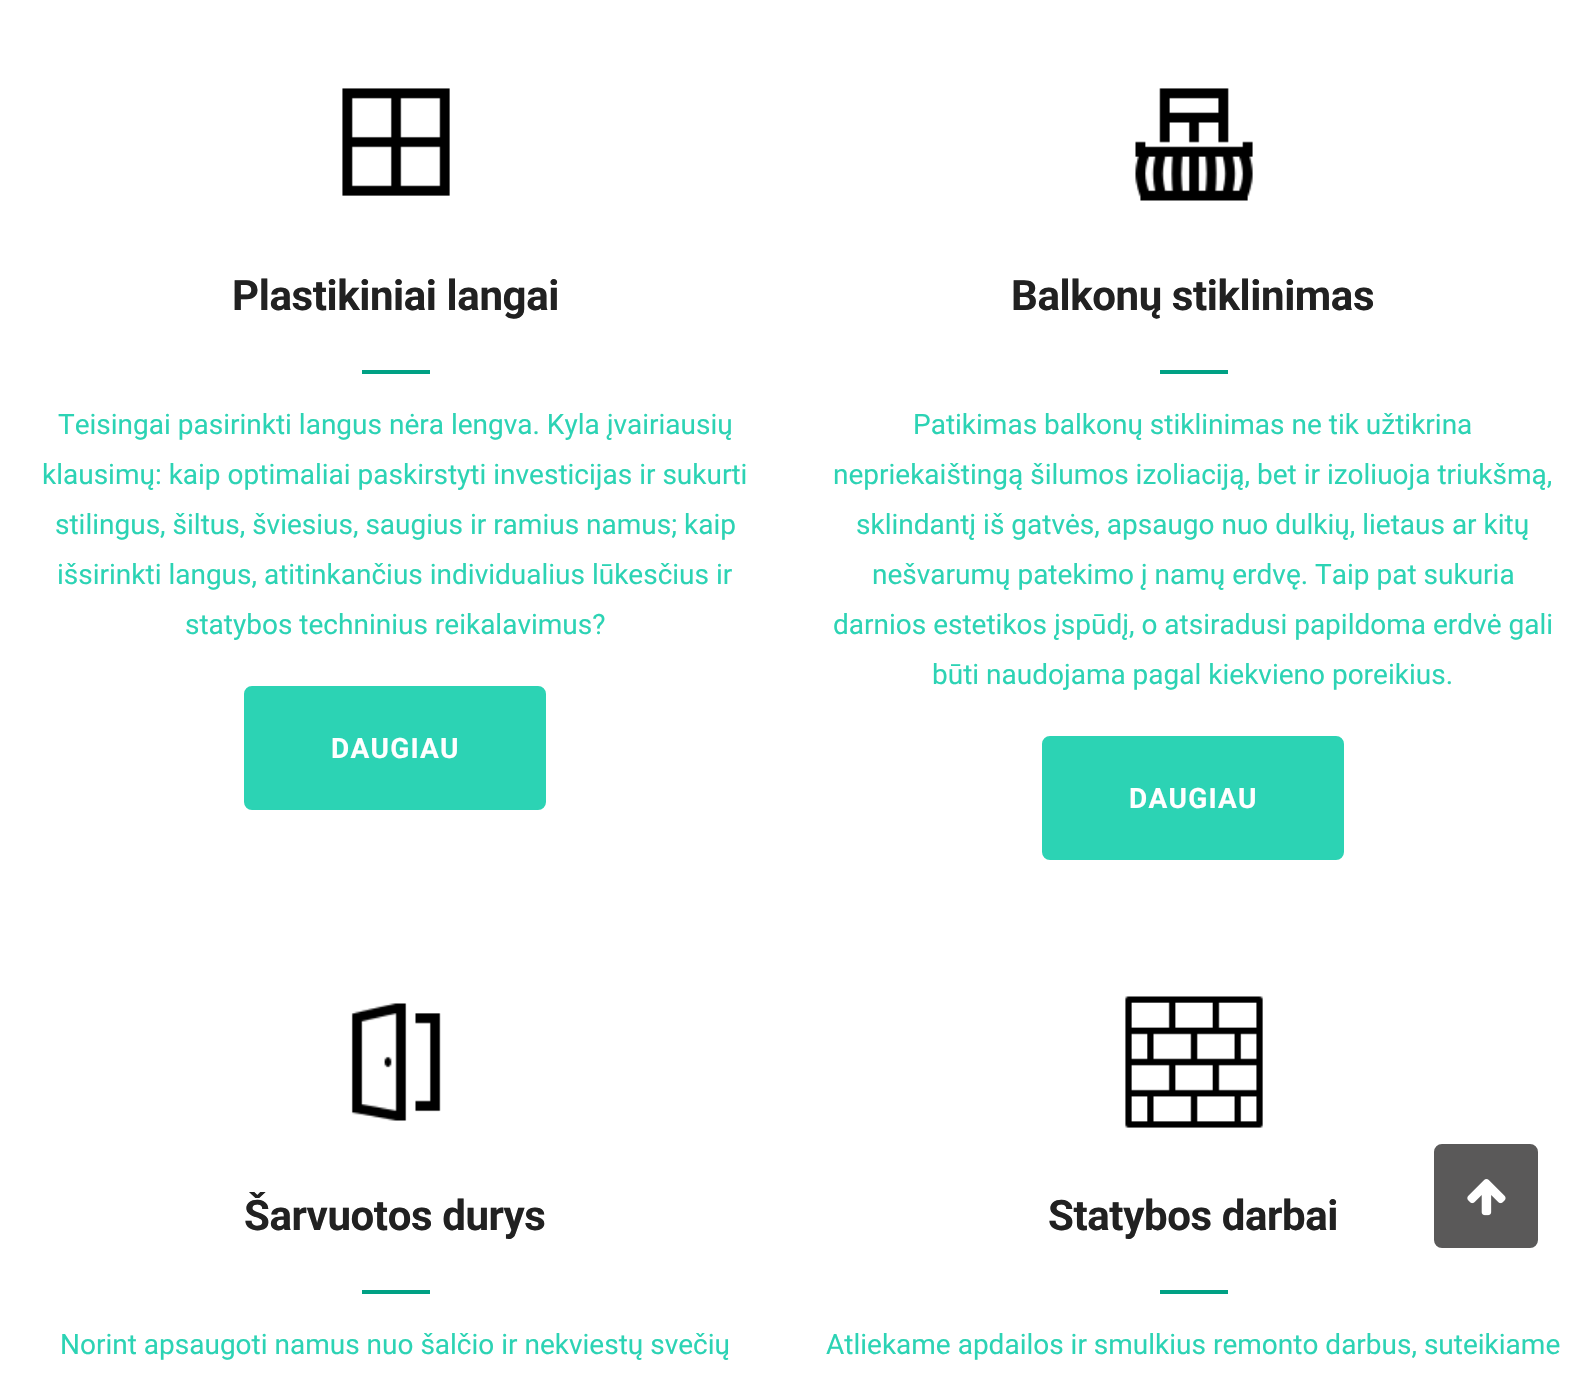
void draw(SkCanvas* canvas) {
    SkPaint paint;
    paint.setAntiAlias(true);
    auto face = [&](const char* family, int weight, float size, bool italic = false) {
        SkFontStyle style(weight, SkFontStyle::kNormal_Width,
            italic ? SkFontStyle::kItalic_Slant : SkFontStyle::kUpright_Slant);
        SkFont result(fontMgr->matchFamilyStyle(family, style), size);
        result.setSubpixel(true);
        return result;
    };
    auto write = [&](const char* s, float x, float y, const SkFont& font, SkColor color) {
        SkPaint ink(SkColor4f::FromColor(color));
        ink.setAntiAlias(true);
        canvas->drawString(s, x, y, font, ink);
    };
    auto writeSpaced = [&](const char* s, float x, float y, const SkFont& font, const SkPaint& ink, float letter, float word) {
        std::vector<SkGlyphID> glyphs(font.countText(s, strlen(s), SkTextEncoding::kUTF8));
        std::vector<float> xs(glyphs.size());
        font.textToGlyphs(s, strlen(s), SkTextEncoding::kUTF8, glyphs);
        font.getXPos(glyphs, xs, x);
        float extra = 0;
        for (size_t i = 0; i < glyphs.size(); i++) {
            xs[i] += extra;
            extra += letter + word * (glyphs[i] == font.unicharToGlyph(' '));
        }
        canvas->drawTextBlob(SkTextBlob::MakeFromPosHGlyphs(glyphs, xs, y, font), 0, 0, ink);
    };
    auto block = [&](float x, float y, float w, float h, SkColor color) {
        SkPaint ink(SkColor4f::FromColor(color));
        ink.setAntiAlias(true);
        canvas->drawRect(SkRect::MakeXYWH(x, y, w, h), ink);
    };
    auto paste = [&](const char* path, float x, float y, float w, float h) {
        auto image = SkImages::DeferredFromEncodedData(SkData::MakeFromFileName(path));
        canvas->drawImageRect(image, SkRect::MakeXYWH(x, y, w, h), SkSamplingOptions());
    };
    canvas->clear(SK_ColorWHITE);
    paste("pic1.png", 342, 88, 108, 108);
    auto kFont1 = face("Roboto", 700, 42);
    paint.setColor(SkColorSetRGB(33, 33, 33));
    writeSpaced("Plastikiniai langai", 232, 310, kFont1, paint, -0.4f, 0);
    block(362, 370, 68, 4, SkColorSetRGB(0, 161, 132));
    auto kFont2 = face("Roboto", 400, 28);
    write("Teisingai pasirinkti langus nėra lengva. Kyla įvairiausių", 58, 434, kFont2, SkColorSetRGB(44, 211, 180));
    write("klausimų: kaip optimaliai paskirstyti investicijas ir sukurti", 42, 484, kFont2, SkColorSetRGB(44, 211, 180));
    write("stilingus, šiltus, šviesius, saugius ir ramius namus; kaip", 55, 534, kFont2, SkColorSetRGB(44, 211, 180));
    write("išsirinkti langus, atitinkančius individualius lūkesčius ir", 57, 584, kFont2, SkColorSetRGB(44, 211, 180));
    write("statybos techninius reikalavimus?", 185, 634, kFont2, SkColorSetRGB(44, 211, 180));
    paint.setColor(SkColorSetRGB(44, 211, 180));
    canvas->drawRoundRect(SkRect::MakeXYWH(245, 687, 300, 122), 7, 7, paint);
    paint.setStyle(SkPaint::kStroke_Style);
    paint.setStrokeWidth(2);
    canvas->drawRoundRect(SkRect::MakeXYWH(245, 687, 300, 122), 7, 7, paint);
    auto kFont3 = face("Roboto", 700, 28);
    paint.setStyle(SkPaint::kFill_Style);
    paint.setColor(SK_ColorWHITE);
    writeSpaced("DAUGIAU", 331, 758, kFont3, paint, 1.25f, 0);
    paste("pic2.png", 1135, 88, 118, 113);
    paint.setColor(SkColorSetRGB(33, 33, 33));
    writeSpaced("Balkonų stiklinimas", 1011, 310, kFont1, paint, -0.4f, 0);
    block(1160, 370, 68, 4, SkColorSetRGB(0, 161, 132));
    write("Patikimas balkonų stiklinimas ne tik užtikrina", 913, 434, kFont2, SkColorSetRGB(44, 211, 180));
    write("nepriekaištingą šilumos izoliaciją, bet ir izoliuoja triukšmą,", 833, 484, kFont2, SkColorSetRGB(44, 211, 180));
    write("sklindantį iš gatvės, apsaugo nuo dulkių, lietaus ar kitų", 856, 534, kFont2, SkColorSetRGB(44, 211, 180));
    write("nešvarumų patekimo į namų erdvę. Taip pat sukuria", 872, 584, kFont2, SkColorSetRGB(44, 211, 180));
    write("darnios estetikos įspūdį, o atsiradusi papildoma erdvė gali", 833, 634, kFont2, SkColorSetRGB(44, 211, 180));
    write("būti naudojama pagal kiekvieno poreikius.", 932, 684, kFont2, SkColorSetRGB(44, 211, 180));
    paint.setColor(SkColorSetRGB(44, 211, 180));
    canvas->drawRoundRect(SkRect::MakeXYWH(1043, 737, 300, 122), 7, 7, paint);
    paint.setStyle(SkPaint::kStroke_Style);
    canvas->drawRoundRect(SkRect::MakeXYWH(1043, 737, 300, 122), 7, 7, paint);
    paint.setStyle(SkPaint::kFill_Style);
    paint.setColor(SK_ColorWHITE);
    writeSpaced("DAUGIAU", 1129, 808, kFont3, paint, 1.25f, 0);
    paste("pic3.png", 351, 1003, 90, 118);
    paint.setColor(SkColorSetRGB(33, 33, 33));
    writeSpaced("Šarvuotos durys", 244, 1230, kFont1, paint, -0.4f, 0);
    block(362, 1290, 68, 4, SkColorSetRGB(0, 161, 132));
    write("Norint apsaugoti namus nuo šalčio ir nekviestų svečių", 60, 1354, kFont2, SkColorSetRGB(44, 211, 180));
    paste("pic4.png", 1125, 996, 138, 132);
    writeSpaced("Statybos darbai", 1048, 1230, kFont1, paint, -0.4f, 0);
    block(1160, 1290, 68, 4, SkColorSetRGB(0, 161, 132));
    write("Atliekame apdailos ir smulkius remonto darbus, suteikiame", 826, 1354, kFont2, SkColorSetRGB(44, 211, 180));
    paint.setColor(SkColorSetRGB(90, 89, 89));
    canvas->drawRoundRect(SkRect::MakeXYWH(1435, 1145, 102, 102), 7, 7, paint);
    paint.setStyle(SkPaint::kStroke_Style);
    canvas->drawRoundRect(SkRect::MakeXYWH(1435, 1145, 102, 102), 7, 7, paint);
    paste("pic5.png", 1467, 1179, 39, 37);
}
